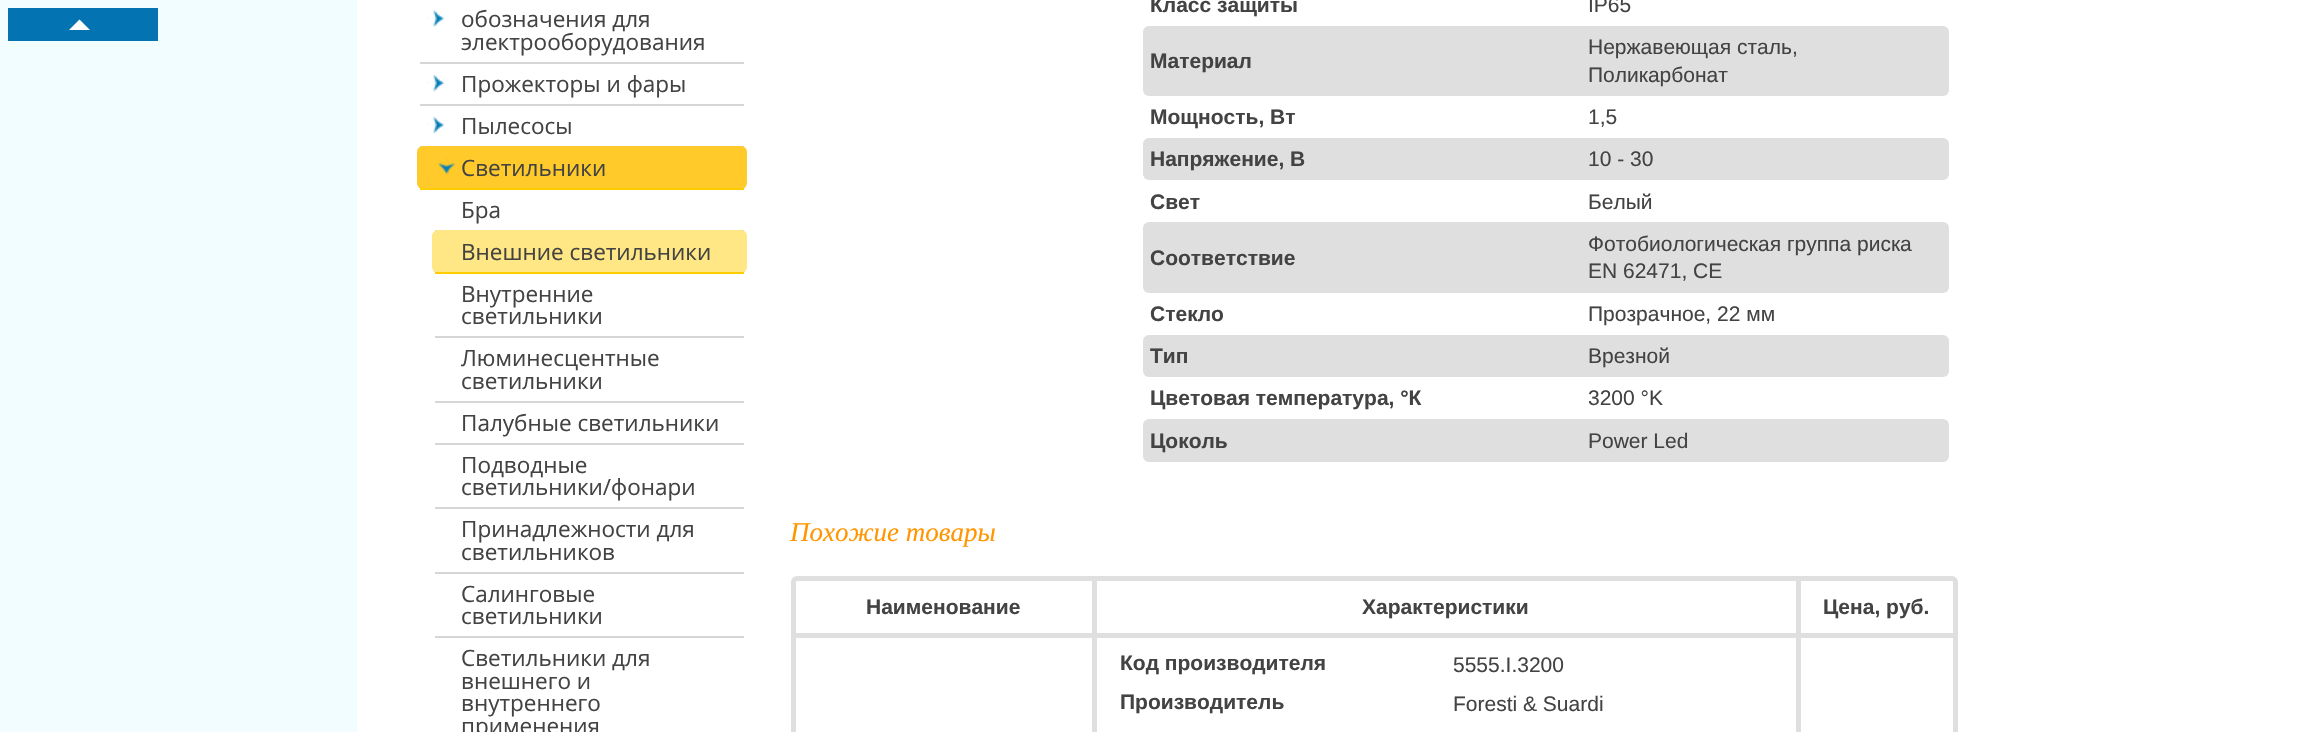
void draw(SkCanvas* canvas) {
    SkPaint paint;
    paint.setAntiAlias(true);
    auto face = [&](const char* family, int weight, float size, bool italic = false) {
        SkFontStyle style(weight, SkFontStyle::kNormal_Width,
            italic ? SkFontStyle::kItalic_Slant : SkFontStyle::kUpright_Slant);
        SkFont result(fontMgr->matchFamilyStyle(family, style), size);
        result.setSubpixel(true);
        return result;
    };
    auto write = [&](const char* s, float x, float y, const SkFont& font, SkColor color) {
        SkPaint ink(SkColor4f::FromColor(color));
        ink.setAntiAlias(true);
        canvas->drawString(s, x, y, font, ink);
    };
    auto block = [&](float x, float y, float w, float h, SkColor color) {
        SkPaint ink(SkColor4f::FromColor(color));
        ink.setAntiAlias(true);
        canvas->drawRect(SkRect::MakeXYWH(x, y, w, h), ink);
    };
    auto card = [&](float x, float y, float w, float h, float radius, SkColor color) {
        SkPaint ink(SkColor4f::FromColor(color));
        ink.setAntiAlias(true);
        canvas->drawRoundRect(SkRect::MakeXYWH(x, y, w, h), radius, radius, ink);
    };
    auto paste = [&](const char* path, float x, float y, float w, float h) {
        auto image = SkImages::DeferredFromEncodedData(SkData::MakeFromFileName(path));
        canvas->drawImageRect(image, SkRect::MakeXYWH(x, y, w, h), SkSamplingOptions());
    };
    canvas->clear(SK_ColorWHITE);
    block(0, 0, 357, 732, SkColorSetRGB(241, 253, 255));
    block(8, 8, 150, 33, SkColorSetRGB(3, 116, 177));
    paint.setColor(SK_ColorWHITE);
    canvas->drawPath(SkPathBuilder().moveTo(90, 30).lineTo(69, 30).lineTo(79.5f, 19.5f).close().detach(), paint);
    paste("pic1.png", 427, 9, 18, 18);
    block(420, 62, 324, 2, SkColorSetRGB(214, 214, 214));
    auto kFont1 = face("Open Sans", 400, 22.5f);
    write("обозначения для", 461, 27, kFont1, SkColorSetRGB(67, 67, 67));
    write("электрооборудования", 461, 50, kFont1, SkColorSetRGB(67, 67, 67));
    paste("pic2.png", 427, 74, 18, 18);
    block(420, 104, 324, 2, SkColorSetRGB(214, 214, 214));
    write("Прожекторы и фары", 461, 92, kFont1, SkColorSetRGB(67, 67, 67));
    paste("pic2.png", 427, 116, 18, 18);
    block(420, 146, 324, 1, SkColorSetRGB(214, 214, 214));
    write("Пылесосы", 461, 134, kFont1, SkColorSetRGB(67, 67, 67));
    card(417, 146, 330, 43, 6, SkColorSetRGB(255, 202, 42));
    paste("pic3.png", 438, 157, 18, 18);
    block(420, 188, 324, 2, SkColorSetRGB(255, 204, 0));
    write("Светильники", 461, 176, kFont1, SkColorSetRGB(67, 67, 67));
    block(435, 230, 309, 1, SkColorSetRGB(214, 214, 214));
    write("Бра", 461, 218, kFont1, SkColorSetRGB(67, 67, 67));
    card(432, 230, 315, 43, 6, SkColorSetRGB(255, 231, 133));
    block(435, 272, 309, 2, SkColorSetRGB(255, 204, 0));
    write("Внешние светильники", 461, 260, kFont1, SkColorSetRGB(67, 67, 67));
    block(435, 336, 309, 2, SkColorSetRGB(214, 214, 214));
    write("Внутренние", 461, 302, kFont1, SkColorSetRGB(67, 67, 67));
    write("светильники", 461, 324, kFont1, SkColorSetRGB(67, 67, 67));
    block(435, 401, 309, 2, SkColorSetRGB(214, 214, 214));
    write("Люминесцентные", 461, 366, kFont1, SkColorSetRGB(67, 67, 67));
    write("светильники", 461, 389, kFont1, SkColorSetRGB(67, 67, 67));
    block(435, 443, 309, 2, SkColorSetRGB(214, 214, 214));
    write("Палубные светильники", 461, 431, kFont1, SkColorSetRGB(67, 67, 67));
    block(435, 507, 309, 2, SkColorSetRGB(214, 214, 214));
    write("Подводные", 461, 473, kFont1, SkColorSetRGB(67, 67, 67));
    write("светильники/фонари", 461, 495, kFont1, SkColorSetRGB(67, 67, 67));
    block(435, 572, 309, 2, SkColorSetRGB(214, 214, 214));
    write("Принадлежности для", 461, 537, kFont1, SkColorSetRGB(67, 67, 67));
    write("светильников", 461, 560, kFont1, SkColorSetRGB(67, 67, 67));
    block(435, 636, 309, 2, SkColorSetRGB(214, 214, 214));
    write("Салинговые", 461, 602, kFont1, SkColorSetRGB(67, 67, 67));
    write("светильники", 461, 624, kFont1, SkColorSetRGB(67, 67, 67));
    write("Светильники для", 461, 666, kFont1, SkColorSetRGB(67, 67, 67));
    write("внешнего и", 461, 689, kFont1, SkColorSetRGB(67, 67, 67));
    write("внутреннего", 461, 711, kFont1, SkColorSetRGB(67, 67, 67));
    write("применения", 461, 734, kFont1, SkColorSetRGB(67, 67, 67));
    auto kFont2 = face("Liberation Sans", 700, 21);
    write("Класс защиты", 1150, 12, kFont2, SkColorSetRGB(67, 67, 67));
    auto kFont3 = face("Liberation Sans", 400, 21);
    write("IP65", 1588, 12, kFont3, SkColorSetRGB(67, 67, 67));
    card(1143, 26, 806, 70, 6, SkColorSetRGB(223, 223, 223));
    write("Материал", 1150, 68, kFont2, SkColorSetRGB(67, 67, 67));
    write("Нержавеющая сталь,", 1588, 54, kFont3, SkColorSetRGB(67, 67, 67));
    write("Поликарбонат", 1588, 82, kFont3, SkColorSetRGB(67, 67, 67));
    write("Мощность, Вт", 1150, 124, kFont2, SkColorSetRGB(67, 67, 67));
    write("1,5", 1588, 124, kFont3, SkColorSetRGB(67, 67, 67));
    card(1143, 138, 806, 42, 6, SkColorSetRGB(223, 223, 223));
    write("Напряжение, В", 1150, 166, kFont2, SkColorSetRGB(67, 67, 67));
    write("10 - 30", 1588, 166, kFont3, SkColorSetRGB(67, 67, 67));
    write("Свет", 1150, 209, kFont2, SkColorSetRGB(67, 67, 67));
    write("Белый", 1588, 209, kFont3, SkColorSetRGB(67, 67, 67));
    card(1143, 222, 806, 71, 6, SkColorSetRGB(223, 223, 223));
    write("Соответствие", 1150, 265, kFont2, SkColorSetRGB(67, 67, 67));
    write("Фотобиологическая группа риска", 1588, 251, kFont3, SkColorSetRGB(67, 67, 67));
    write("EN 62471, CE", 1588, 278, kFont3, SkColorSetRGB(67, 67, 67));
    write("Стекло", 1150, 321, kFont2, SkColorSetRGB(67, 67, 67));
    write("Прозрачное, 22 мм", 1588, 321, kFont3, SkColorSetRGB(67, 67, 67));
    card(1143, 335, 806, 42, 6, SkColorSetRGB(223, 223, 223));
    write("Тип", 1150, 363, kFont2, SkColorSetRGB(67, 67, 67));
    write("Врезной", 1588, 363, kFont3, SkColorSetRGB(67, 67, 67));
    write("Цветовая температура, °К", 1150, 405, kFont2, SkColorSetRGB(67, 67, 67));
    write("3200 °K", 1588, 405, kFont3, SkColorSetRGB(67, 67, 67));
    card(1143, 419, 806, 43, 6, SkColorSetRGB(223, 223, 223));
    write("Цоколь", 1150, 448, kFont2, SkColorSetRGB(67, 67, 67));
    write("Power Led", 1588, 448, kFont3, SkColorSetRGB(67, 67, 67));
    auto kFont4 = face("Liberation Serif", 400, 27, true);
    write("Похожие товары", 790, 541, kFont4, SkColorSetRGB(255, 150, 0));
    paint.setStyle(SkPaint::kStroke_Style);
    paint.setStrokeWidth(5);
    paint.setColor(SkColorSetRGB(223, 223, 223));
    canvas->drawRoundRect(SkRect::MakeXYWH(793.5f, 578.5f, 1162, 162), 3.5f, 3.5f, paint);
    block(1796, 633, 5, 99, SkColorSetRGB(223, 223, 223));
    block(1796, 633, 159, 5, SkColorSetRGB(223, 223, 223));
    block(1796, 579, 5, 59, SkColorSetRGB(223, 223, 223));
    block(1092, 633, 5, 99, SkColorSetRGB(223, 223, 223));
    block(1092, 633, 708, 5, SkColorSetRGB(223, 223, 223));
    block(1092, 579, 5, 59, SkColorSetRGB(223, 223, 223));
    block(792, 633, 305, 5, SkColorSetRGB(223, 223, 223));
    write("Наименование", 866, 614, kFont2, SkColorSetRGB(67, 67, 67));
    write("Характеристики", 1362, 614, kFont2, SkColorSetRGB(67, 67, 67));
    write("Цена, руб.", 1823, 614, kFont2, SkColorSetRGB(67, 67, 67));
    write("Код производителя", 1120, 670, kFont2, SkColorSetRGB(67, 67, 67));
    write("5555.I.3200", 1453, 672, kFont3, SkColorSetRGB(67, 67, 67));
    write("Производитель", 1120, 709, kFont2, SkColorSetRGB(67, 67, 67));
    write("Foresti & Suardi", 1453, 711, kFont3, SkColorSetRGB(67, 67, 67));
}
